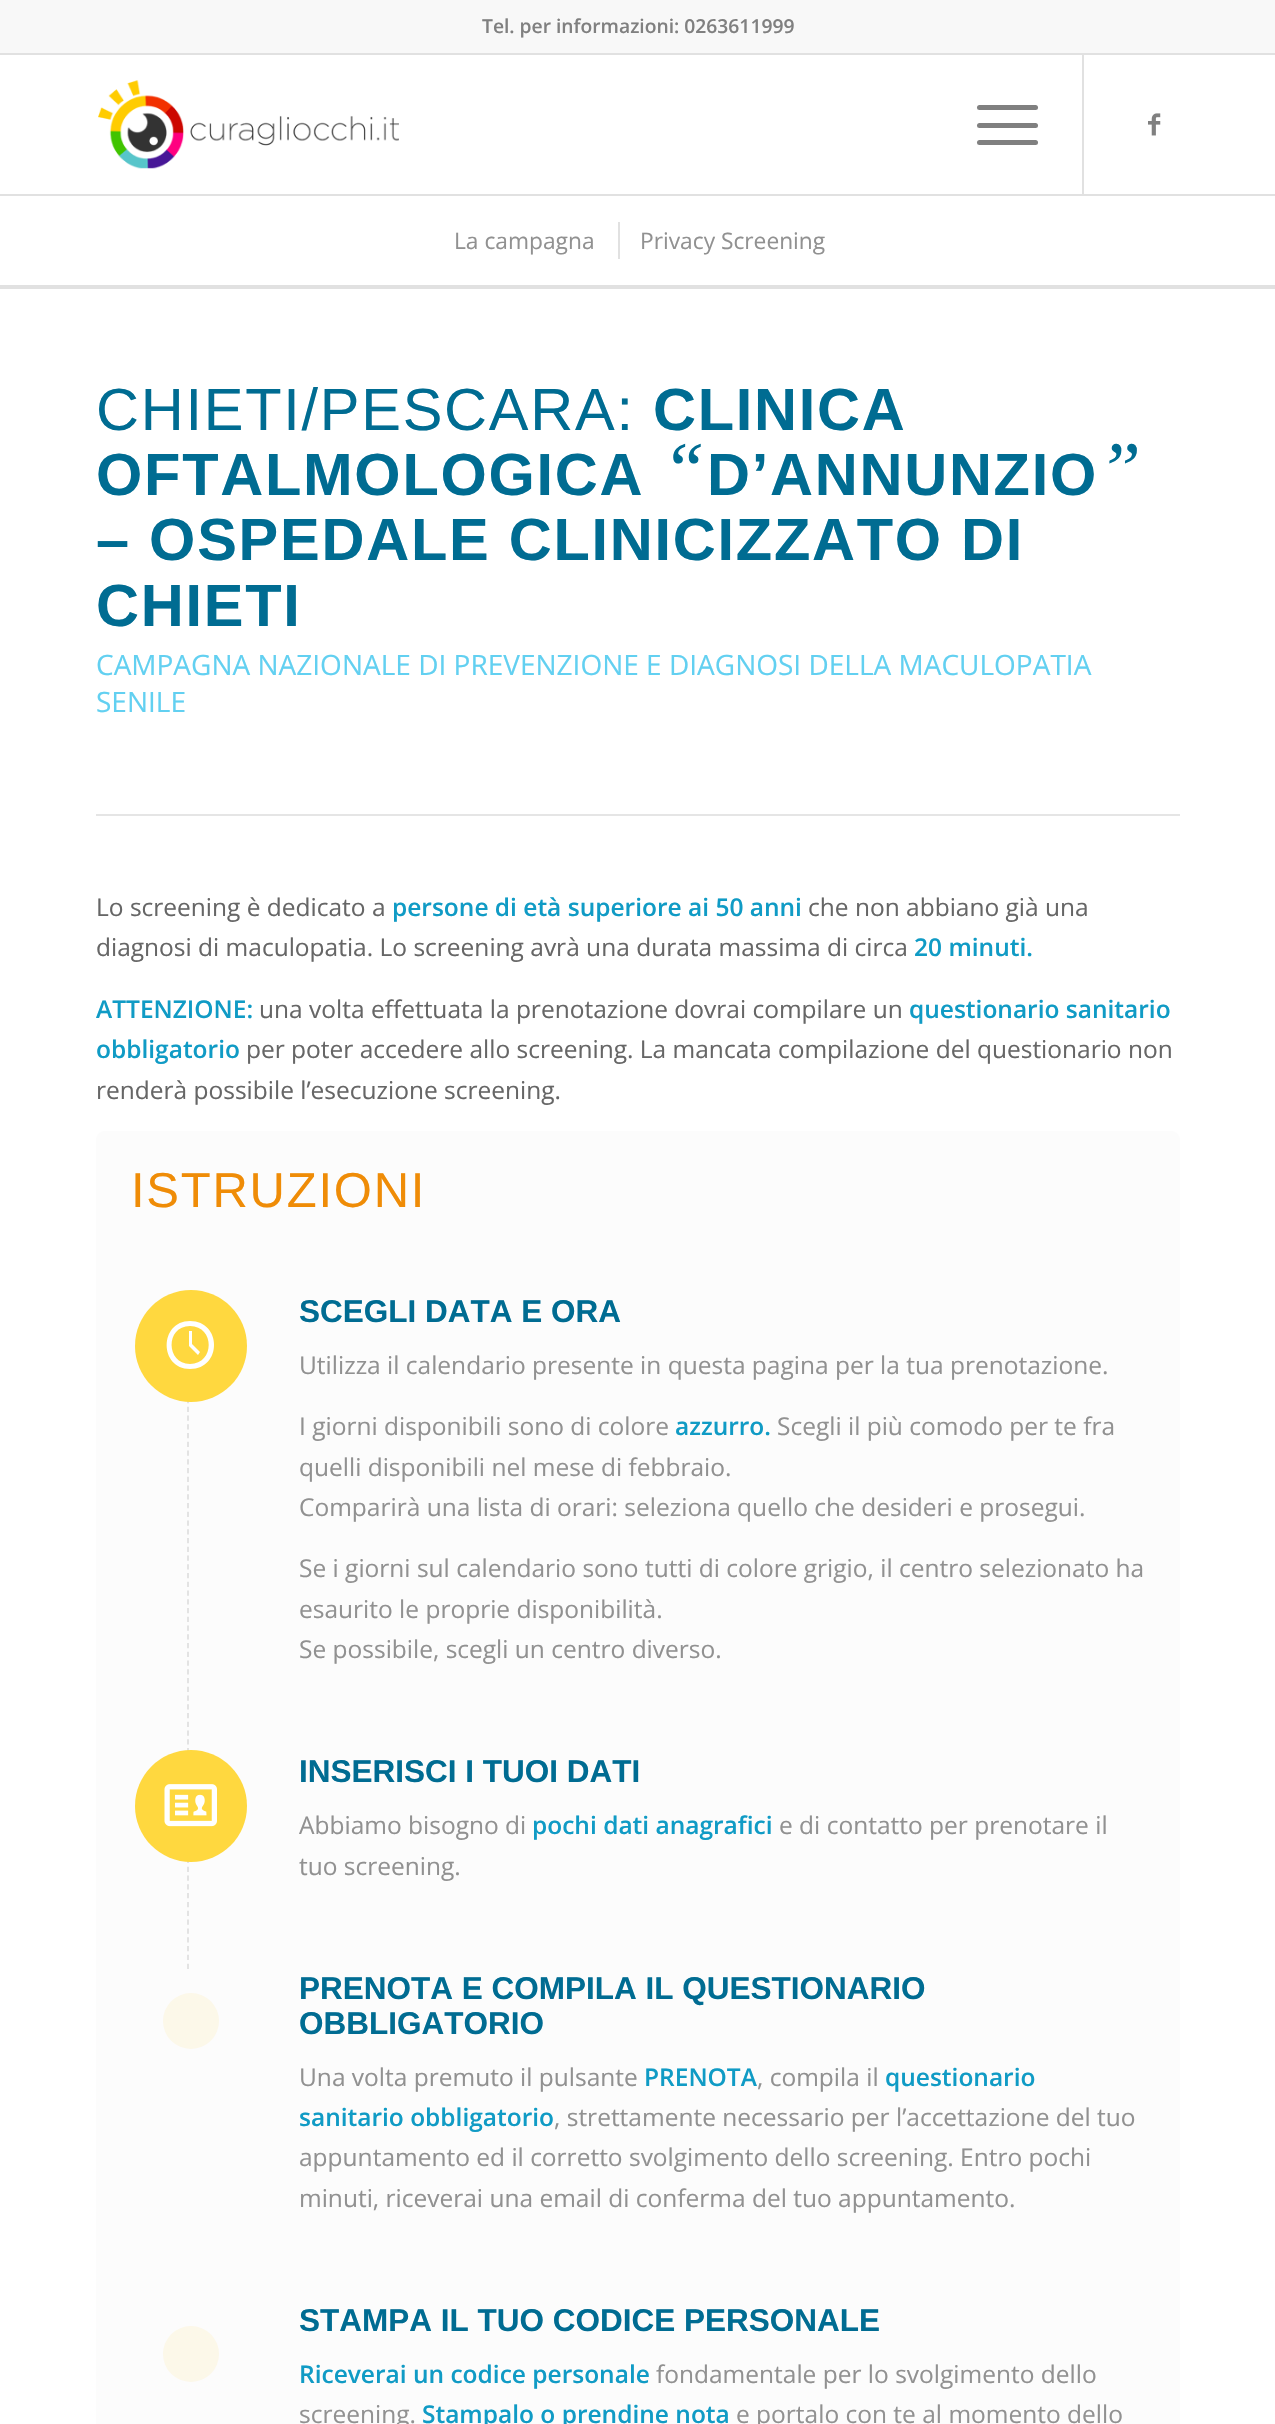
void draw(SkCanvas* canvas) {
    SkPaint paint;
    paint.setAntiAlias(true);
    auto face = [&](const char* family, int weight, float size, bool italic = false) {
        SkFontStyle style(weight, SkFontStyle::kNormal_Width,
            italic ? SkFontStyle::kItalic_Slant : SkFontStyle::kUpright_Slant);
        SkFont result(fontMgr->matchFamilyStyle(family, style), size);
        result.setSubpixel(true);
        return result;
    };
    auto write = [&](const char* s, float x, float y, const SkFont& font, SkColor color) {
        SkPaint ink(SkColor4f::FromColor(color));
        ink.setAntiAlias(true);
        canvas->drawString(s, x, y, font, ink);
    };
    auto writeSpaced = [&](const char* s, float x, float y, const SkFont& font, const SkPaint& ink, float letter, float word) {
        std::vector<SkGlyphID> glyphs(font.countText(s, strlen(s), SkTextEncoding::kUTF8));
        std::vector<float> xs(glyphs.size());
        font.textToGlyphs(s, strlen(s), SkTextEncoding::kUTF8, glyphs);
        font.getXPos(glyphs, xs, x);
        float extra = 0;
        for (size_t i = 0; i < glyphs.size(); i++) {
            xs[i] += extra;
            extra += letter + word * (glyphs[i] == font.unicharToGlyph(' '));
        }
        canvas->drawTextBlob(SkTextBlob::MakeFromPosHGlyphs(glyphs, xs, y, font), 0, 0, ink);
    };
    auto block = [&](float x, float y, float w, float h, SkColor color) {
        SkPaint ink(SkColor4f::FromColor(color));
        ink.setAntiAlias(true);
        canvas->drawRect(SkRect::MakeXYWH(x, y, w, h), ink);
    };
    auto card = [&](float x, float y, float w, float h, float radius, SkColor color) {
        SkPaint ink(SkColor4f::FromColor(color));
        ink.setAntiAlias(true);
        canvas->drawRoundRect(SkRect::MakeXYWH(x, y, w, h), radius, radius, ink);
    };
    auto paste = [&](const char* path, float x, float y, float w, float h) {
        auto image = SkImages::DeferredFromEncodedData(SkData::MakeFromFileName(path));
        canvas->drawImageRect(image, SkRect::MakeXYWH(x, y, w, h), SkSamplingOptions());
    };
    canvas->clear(SK_ColorWHITE);
    block(0, 0, 1275, 53, SkColorSetRGB(248, 248, 248));
    block(1082, 54, 2, 140, SkColorSetRGB(225, 225, 225));
    block(0, 53, 1275, 2, SkColorSetRGB(225, 225, 225));
    auto kFont1 = face("Open Sans", 600, 19.25f);
    write("Tel. per informazioni: 0263611999", 482, 33, kFont1, SkColorSetRGB(128, 128, 128));
    block(0, 194, 1275, 2, SkColorSetRGB(225, 225, 225));
    paste("pic1.png", 96, 55, 305, 114);
    card(977, 123, 61, 5, 2.5f, SkColorSetRGB(128, 128, 128));
    card(977, 105, 61, 5, 2.5f, SkColorSetRGB(128, 128, 128));
    card(977, 140, 61, 5, 2.5f, SkColorSetRGB(128, 128, 128));
    paste("pic2.png", 1148, 113, 13, 23);
    auto kFont2 = face("Open Sans", 400, 22.75f);
    write("La campagna", 454, 249, kFont2, SkColorSetRGB(145, 145, 145));
    block(618, 222, 2, 37, SkColorSetRGB(225, 225, 225));
    write("Privacy Screening", 640, 249, kFont2, SkColorSetRGB(145, 145, 145));
    block(0, 285, 1275, 4, SkColorSetRGB(225, 225, 225));
    auto kFont3 = face("Arimo", 400, 59.5f);
    paint.setColor(SkColorSetRGB(0, 108, 146));
    writeSpaced("CHIETI/PESCARA:", 96, 430, kFont3, paint, 1.75f, 0);
    auto kFont4 = face("Arimo", 700, 59.5f);
    writeSpaced("CLINICA", 653, 430, kFont4, paint, 1.75f, 0);
    writeSpaced("OFTALMOLOGICA", 96, 495, kFont4, paint, 1.75f, 0);
    auto kFont5 = face("Liberation Serif", 400, 77, true);
    writeSpaced("“", 662, 495, kFont5, paint, 1.75f, 0);
    writeSpaced("D’ANNUNZIO", 707, 495, kFont4, paint, 1.75f, 0);
    writeSpaced("”", 1098, 495, kFont5, paint, 1.75f, 0);
    writeSpaced("– OSPEDALE CLINICIZZATO DI", 96, 560, kFont4, paint, 1.75f, 0);
    writeSpaced("CHIETI", 96, 626, kFont4, paint, 1.75f, 0);
    auto kFont6 = face("Open Sans", 400, 28);
    write("CAMPAGNA NAZIONALE DI PREVENZIONE E DIAGNOSI DELLA MACULOPATIA", 96, 675, kFont6, SkColorSetRGB(98, 208, 241));
    write("SENILE", 96, 712, kFont6, SkColorSetRGB(98, 208, 241));
    block(96, 814, 1084, 2, SkColorSetRGB(229, 229, 229));
    auto kFont7 = face("Open Sans", 400, 24.5f);
    write("Lo screening è dedicato a", 96, 916, kFont7, SkColorSetRGB(102, 102, 102));
    auto kFont8 = face("Open Sans", 600, 24.5f);
    write("persone di età superiore ai 50 anni", 392, 916, kFont8, SkColorSetRGB(16, 155, 197));
    write("che non abbiano già una", 808, 916, kFont7, SkColorSetRGB(102, 102, 102));
    write("diagnosi di maculopatia. Lo screening avrà una durata massima di circa", 96, 956, kFont7, SkColorSetRGB(102, 102, 102));
    write("20 minuti.", 914, 956, kFont8, SkColorSetRGB(16, 155, 197));
    write("ATTENZIONE:", 96, 1018, kFont8, SkColorSetRGB(16, 155, 197));
    write("una volta effettuata la prenotazione dovrai compilare un", 259, 1018, kFont7, SkColorSetRGB(102, 102, 102));
    write("questionario sanitario", 909, 1018, kFont8, SkColorSetRGB(16, 155, 197));
    write("obbligatorio", 96, 1058, kFont8, SkColorSetRGB(16, 155, 197));
    write("per poter accedere allo screening. La mancata compilazione del questionario non", 246, 1058, kFont7, SkColorSetRGB(102, 102, 102));
    write("renderà possibile l’esecuzione screening.", 96, 1099, kFont7, SkColorSetRGB(102, 102, 102));
    card(96, 1131, 1084, 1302, 9, SkColorSetRGB(252, 252, 252));
    auto kFont9 = face("Arimo", 400, 49);
    paint.setColor(SkColorSetRGB(239, 140, 7));
    writeSpaced("ISTRUZIONI", 131, 1207, kFont9, paint, 1.75f, 0);
    paint.setStyle(SkPaint::kStroke_Style);
    paint.setStrokeWidth(1.8f);
    paint.setColor(SkColorSetRGB(225, 225, 225));
    paint.setPathEffect(SkDashPathEffect::Make({{5.25f, 3.5f}}, 0));
    canvas->drawPath(SkPathBuilder().moveTo(188, 1293).lineTo(188, 1753.5f).detach(), paint);
    paint.setPathEffect(nullptr);
    paint.setStyle(SkPaint::kFill_Style);
    paint.setColor(SkColorSetRGB(255, 216, 63));
    canvas->drawCircle(191, 1346, 56, paint);
    paint.setColor(SK_ColorWHITE);
    canvas->drawPath(SkPathBuilder().moveTo(190, 1321).cubicTo(222, 1321, 222, 1369, 190, 1369).cubicTo(159, 1369, 159, 1321, 190, 1321).close().moveTo(190, 1364).cubicTo(215, 1364, 215, 1326, 190, 1326).cubicTo(165, 1326, 166, 1364, 190, 1364).close().moveTo(192, 1331).lineTo(192, 1344).lineTo(200, 1352).lineTo(198, 1355).lineTo(189, 1346).lineTo(189, 1331).close().detach(), paint);
    auto kFont10 = face("Arimo", 700, 31.5f);
    write("SCEGLI DATA E ORA", 299, 1322, kFont10, SkColorSetRGB(0, 108, 146));
    write("Utilizza il calendario presente in questa pagina per la tua prenotazione.", 299, 1374, kFont7, SkColorSetRGB(145, 145, 145));
    write("I giorni disponibili sono di colore", 299, 1435, kFont7, SkColorSetRGB(145, 145, 145));
    write("azzurro.", 675, 1435, kFont8, SkColorSetRGB(16, 155, 197));
    write("Scegli il più comodo per te fra", 777, 1435, kFont7, SkColorSetRGB(145, 145, 145));
    write("quelli disponibili nel mese di febbraio.", 299, 1476, kFont7, SkColorSetRGB(145, 145, 145));
    write("Comparirà una lista di orari: seleziona quello che desideri e prosegui.", 299, 1516, kFont7, SkColorSetRGB(145, 145, 145));
    write("Se i giorni sul calendario sono tutti di colore grigio, il centro selezionato ha", 299, 1577, kFont7, SkColorSetRGB(145, 145, 145));
    write("esaurito le proprie disponibilità.", 299, 1618, kFont7, SkColorSetRGB(145, 145, 145));
    write("Se possibile, scegli un centro diverso.", 299, 1658, kFont7, SkColorSetRGB(145, 145, 145));
    paint.setStyle(SkPaint::kStroke_Style);
    paint.setColor(SkColorSetRGB(225, 225, 225));
    paint.setPathEffect(SkDashPathEffect::Make({{5.25f, 3.57f}}, 0));
    canvas->drawPath(SkPathBuilder().moveTo(188, 1752).lineTo(188, 1969).detach(), paint);
    paint.setPathEffect(nullptr);
    paint.setStyle(SkPaint::kFill_Style);
    paint.setColor(SkColorSetRGB(255, 216, 63));
    canvas->drawCircle(191, 1806, 56, paint);
    paste("pic3.png", 164, 1784, 53, 43);
    write("INSERISCI I TUOI DATI", 299, 1782, kFont10, SkColorSetRGB(0, 108, 146));
    write("Abbiamo bisogno di", 299, 1834, kFont7, SkColorSetRGB(145, 145, 145));
    write("pochi dati anagrafici", 532, 1834, kFont8, SkColorSetRGB(16, 155, 197));
    write("e di contatto per prenotare il", 779, 1834, kFont7, SkColorSetRGB(145, 145, 145));
    write("tuo screening.", 299, 1875, kFont7, SkColorSetRGB(145, 145, 145));
    paint.setColor(SkColorSetRGB(252, 248, 233));
    canvas->drawCircle(191, 2021, 28, paint);
    write("PRENOTA E COMPILA IL QUESTIONARIO", 299, 1999, kFont10, SkColorSetRGB(0, 108, 146));
    write("OBBLIGATORIO", 299, 2034, kFont10, SkColorSetRGB(0, 108, 146));
    write("Una volta premuto il pulsante", 299, 2086, kFont7, SkColorSetRGB(145, 145, 145));
    write("PRENOTA", 644, 2086, kFont8, SkColorSetRGB(16, 155, 197));
    write(", compila il", 757, 2086, kFont7, SkColorSetRGB(145, 145, 145));
    write("questionario", 885, 2086, kFont8, SkColorSetRGB(16, 155, 197));
    write("sanitario obbligatorio", 299, 2126, kFont8, SkColorSetRGB(16, 155, 197));
    write(", strettamente necessario per l’accettazione del tuo", 554, 2126, kFont7, SkColorSetRGB(145, 145, 145));
    write("appuntamento ed il corretto svolgimento dello screening. Entro pochi", 299, 2166, kFont7, SkColorSetRGB(145, 145, 145));
    write("minuti, riceverai una email di conferma del tuo appuntamento.", 299, 2207, kFont7, SkColorSetRGB(145, 145, 145));
    canvas->drawCircle(191, 2354, 28, paint);
    write("STAMPA IL TUO CODICE PERSONALE", 299, 2331, kFont10, SkColorSetRGB(0, 108, 146));
    write("Riceverai un codice personale", 299, 2383, kFont8, SkColorSetRGB(16, 155, 197));
    write("fondamentale per lo svolgimento dello", 656, 2383, kFont7, SkColorSetRGB(145, 145, 145));
    write("screening.", 299, 2423, kFont7, SkColorSetRGB(145, 145, 145));
    write("Stampalo o prendine nota", 422, 2423, kFont8, SkColorSetRGB(16, 155, 197));
    write("e portalo con te al momento dello", 736, 2423, kFont7, SkColorSetRGB(145, 145, 145));
}
